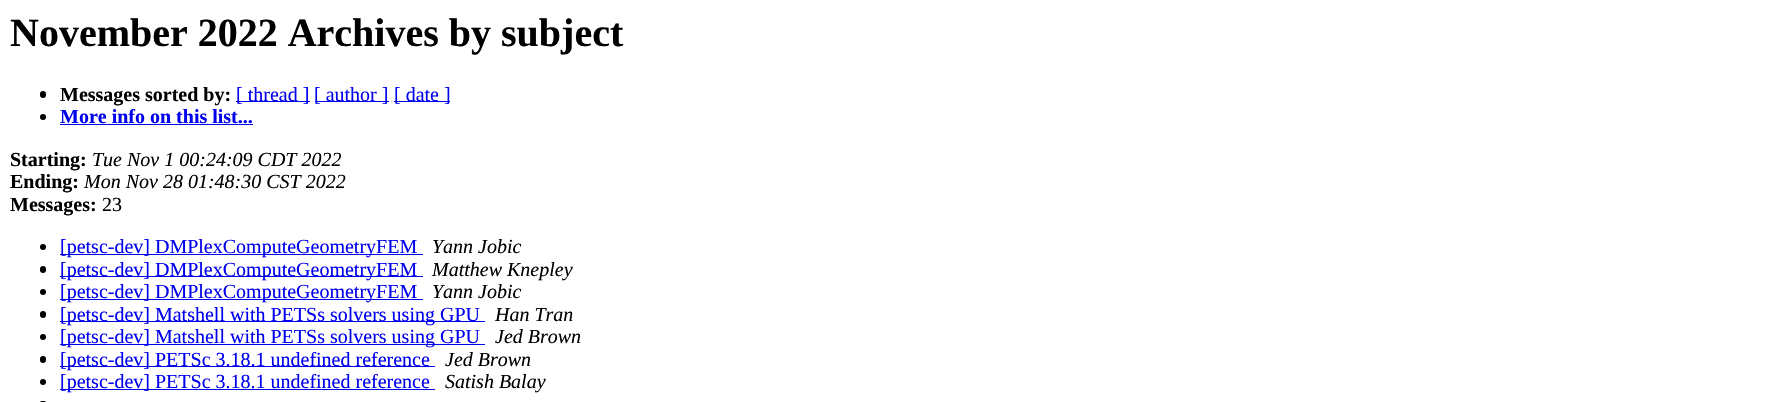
void draw(SkCanvas* canvas) {
    SkPaint paint;
    paint.setAntiAlias(true);
    auto face = [&](const char* family, int weight, float size, bool italic = false) {
        SkFontStyle style(weight, SkFontStyle::kNormal_Width,
            italic ? SkFontStyle::kItalic_Slant : SkFontStyle::kUpright_Slant);
        SkFont result(fontMgr->matchFamilyStyle(family, style), size);
        result.setSubpixel(true);
        return result;
    };
    auto write = [&](const char* s, float x, float y, const SkFont& font, SkColor color) {
        SkPaint ink(SkColor4f::FromColor(color));
        ink.setAntiAlias(true);
        canvas->drawString(s, x, y, font, ink);
    };
    auto block = [&](float x, float y, float w, float h, SkColor color) {
        SkPaint ink(SkColor4f::FromColor(color));
        ink.setAntiAlias(true);
        canvas->drawRect(SkRect::MakeXYWH(x, y, w, h), ink);
    };
    auto card = [&](float x, float y, float w, float h, float radius, SkColor color) {
        SkPaint ink(SkColor4f::FromColor(color));
        ink.setAntiAlias(true);
        canvas->drawRoundRect(SkRect::MakeXYWH(x, y, w, h), radius, radius, ink);
    };
    canvas->clear(SK_ColorWHITE);
    auto kFont1 = face("Liberation Serif", 700, 40);
    write("November 2022 Archives by subject", 10, 46, kFont1, SK_ColorBLACK);
    card(40, 91, 6, 7, 3, SK_ColorBLACK);
    auto kFont2 = face("Liberation Serif", 700, 20);
    write("Messages sorted by:", 60, 101, kFont2, SK_ColorBLACK);
    block(236, 101, 74, 1, SkColorSetRGB(0, 0, 238));
    auto kFont3 = face("Liberation Serif", 400, 20);
    write("[ thread ]", 236, 101, kFont3, SkColorSetRGB(0, 0, 238));
    block(315, 101, 74, 1, SkColorSetRGB(0, 0, 238));
    write("[ author ]", 314, 101, kFont3, SkColorSetRGB(0, 0, 238));
    block(394, 101, 56, 1, SkColorSetRGB(0, 0, 238));
    write("[ date ]", 394, 101, kFont3, SkColorSetRGB(0, 0, 238));
    paint.setColor(SK_ColorBLACK);
    canvas->drawCircle(43, 117, 3, paint);
    write("More info on this list...", 60, 123, kFont2, SkColorSetRGB(0, 0, 238));
    block(60, 124, 193, 1, SkColorSetRGB(0, 0, 238));
    write("Starting:", 10, 166, kFont2, SK_ColorBLACK);
    auto kFont4 = face("Liberation Serif", 400, 20, true);
    write("Tue Nov 1 00:24:09 CDT 2022", 92, 166, kFont4, SK_ColorBLACK);
    write("Ending:", 10, 188, kFont2, SK_ColorBLACK);
    write("Mon Nov 28 01:48:30 CST 2022", 84, 188, kFont4, SK_ColorBLACK);
    write("Messages:", 10, 211, kFont2, SK_ColorBLACK);
    write("23", 102, 211, kFont3, SK_ColorBLACK);
    canvas->drawCircle(43, 247, 3, paint);
    block(60, 254, 363, 1, SkColorSetRGB(0, 0, 238));
    write("[petsc-dev] DMPlexComputeGeometryFEM", 60, 253, kFont3, SkColorSetRGB(0, 0, 238));
    write("Yann Jobic", 432, 253, kFont4, SK_ColorBLACK);
    card(40, 266, 6, 7, 3, SK_ColorBLACK);
    block(60, 276, 363, 1, SkColorSetRGB(0, 0, 238));
    write("[petsc-dev] DMPlexComputeGeometryFEM", 60, 276, kFont3, SkColorSetRGB(0, 0, 238));
    write("Matthew Knepley", 432, 276, kFont4, SK_ColorBLACK);
    canvas->drawCircle(43, 292, 3, paint);
    block(60, 299, 363, 1, SkColorSetRGB(0, 0, 238));
    write("[petsc-dev] DMPlexComputeGeometryFEM", 60, 298, kFont3, SkColorSetRGB(0, 0, 238));
    write("Yann Jobic", 432, 298, kFont4, SK_ColorBLACK);
    card(40, 311, 6, 7, 3, SK_ColorBLACK);
    block(60, 321, 425, 1, SkColorSetRGB(0, 0, 238));
    write("[petsc-dev] Matshell with PETSs solvers using GPU", 60, 321, kFont3, SkColorSetRGB(0, 0, 238));
    write("Han Tran", 495, 321, kFont4, SK_ColorBLACK);
    canvas->drawCircle(43, 337, 3, paint);
    block(60, 344, 425, 1, SkColorSetRGB(0, 0, 238));
    write("[petsc-dev] Matshell with PETSs solvers using GPU", 60, 343, kFont3, SkColorSetRGB(0, 0, 238));
    write("Jed Brown", 495, 343, kFont4, SK_ColorBLACK);
    card(40, 356, 6, 7, 3, SK_ColorBLACK);
    block(60, 366, 375, 1, SkColorSetRGB(0, 0, 238));
    write("[petsc-dev] PETSc 3.18.1 undefined reference", 60, 366, kFont3, SkColorSetRGB(0, 0, 238));
    write("Jed Brown", 445, 366, kFont4, SK_ColorBLACK);
    canvas->drawCircle(43, 382, 3, paint);
    block(60, 389, 375, 1, SkColorSetRGB(0, 0, 238));
    write("[petsc-dev] PETSc 3.18.1 undefined reference", 60, 388, kFont3, SkColorSetRGB(0, 0, 238));
    write("Satish Balay", 445, 388, kFont4, SK_ColorBLACK);
    card(40, 401, 6, 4, 3, SK_ColorBLACK);
}
